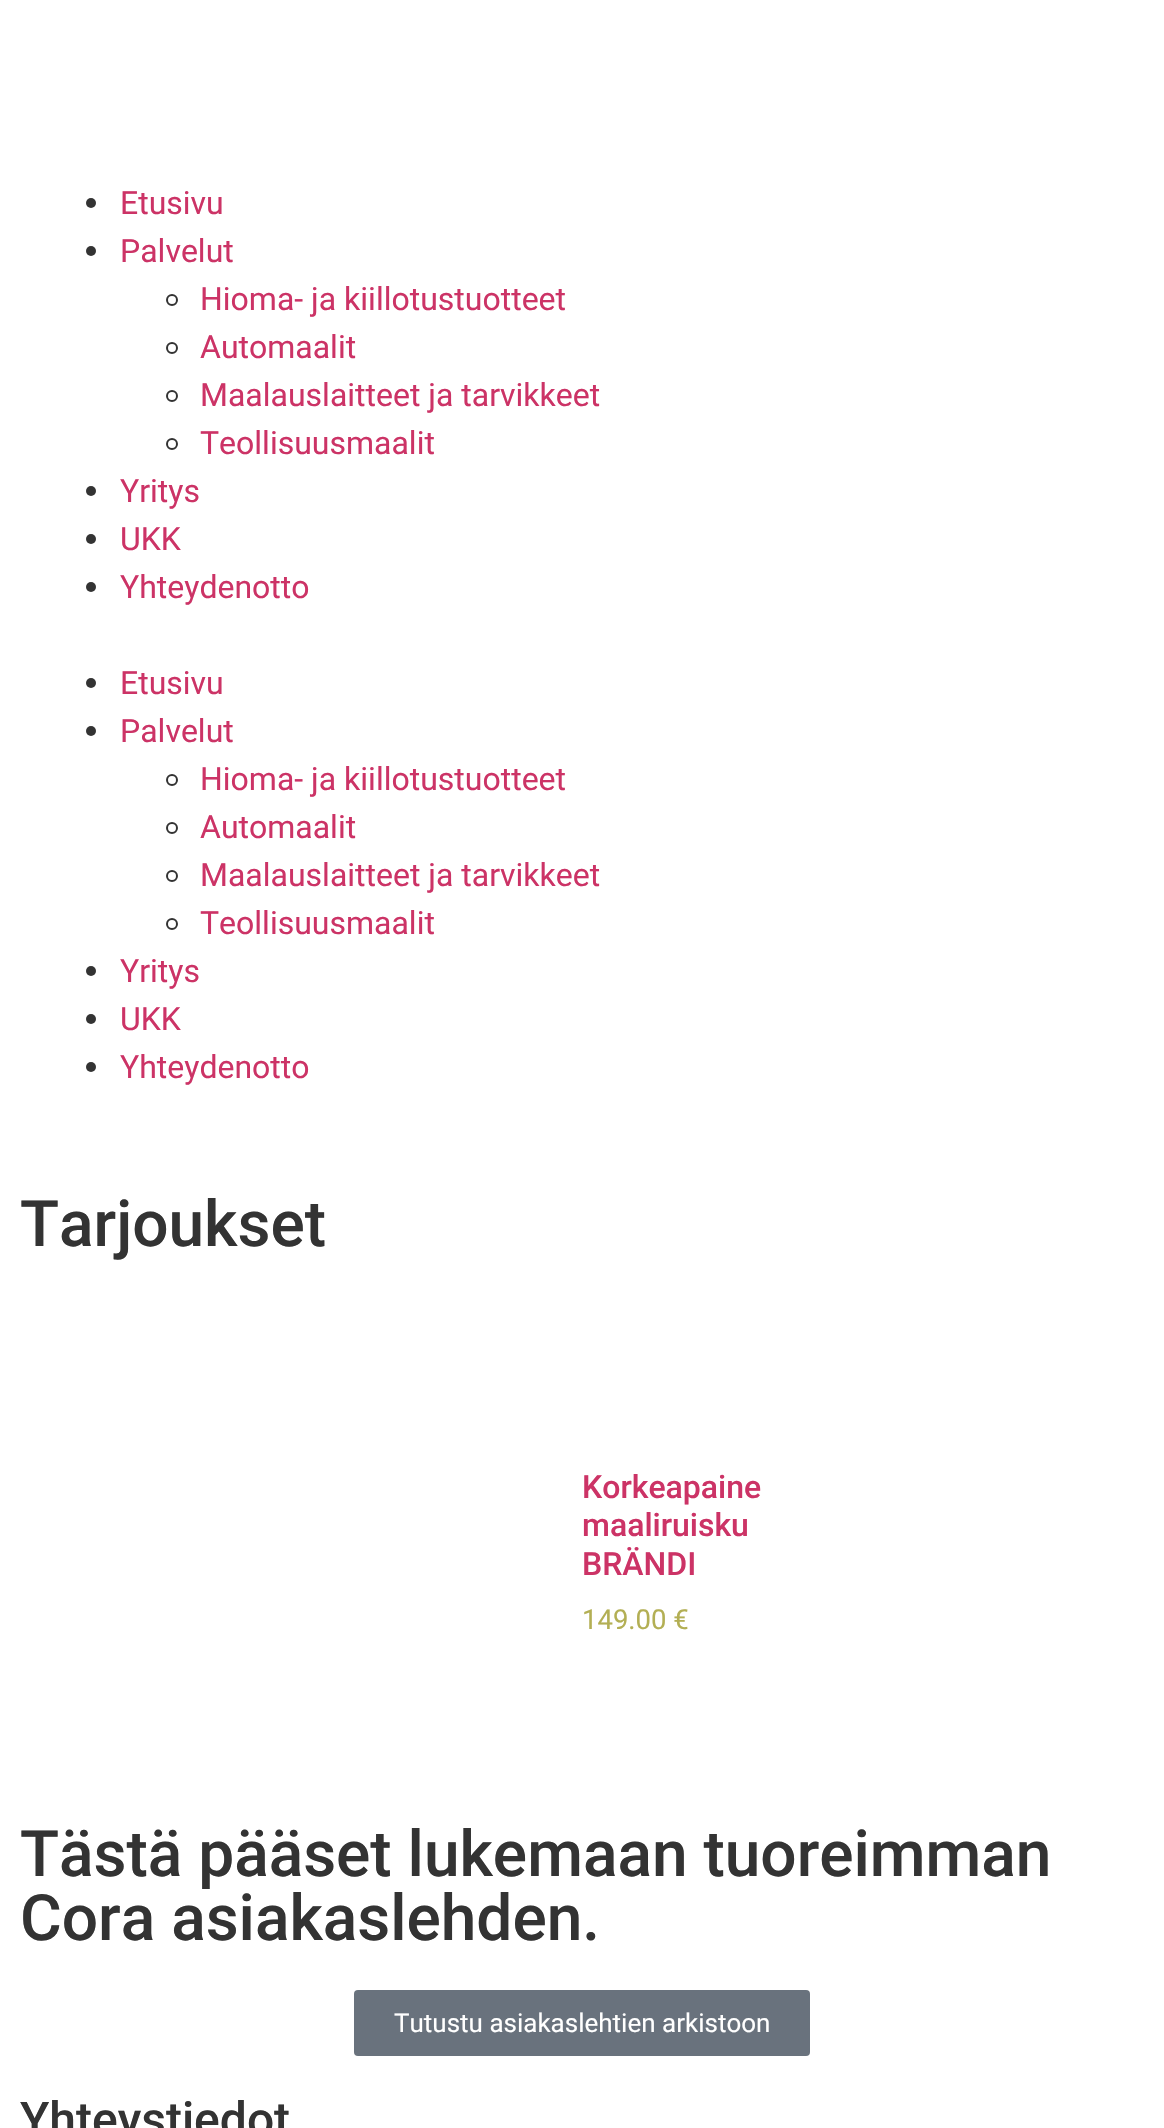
void draw(SkCanvas* canvas) {
    SkPaint paint;
    paint.setAntiAlias(true);
    auto face = [&](const char* family, int weight, float size, bool italic = false) {
        SkFontStyle style(weight, SkFontStyle::kNormal_Width,
            italic ? SkFontStyle::kItalic_Slant : SkFontStyle::kUpright_Slant);
        SkFont result(fontMgr->matchFamilyStyle(family, style), size);
        result.setSubpixel(true);
        return result;
    };
    auto write = [&](const char* s, float x, float y, const SkFont& font, SkColor color) {
        SkPaint ink(SkColor4f::FromColor(color));
        ink.setAntiAlias(true);
        canvas->drawString(s, x, y, font, ink);
    };
    auto card = [&](float x, float y, float w, float h, float radius, SkColor color) {
        SkPaint ink(SkColor4f::FromColor(color));
        ink.setAntiAlias(true);
        canvas->drawRoundRect(SkRect::MakeXYWH(x, y, w, h), radius, radius, ink);
    };
    canvas->clear(SK_ColorWHITE);
    paint.setColor(SkColorSetRGB(51, 51, 51));
    canvas->drawCircle(91, 203, 5, paint);
    auto kFont1 = face("Roboto", 400, 32);
    write("Etusivu", 120, 214, kFont1, SkColorSetRGB(204, 51, 102));
    canvas->drawCircle(91, 251, 5, paint);
    write("Palvelut", 120, 262, kFont1, SkColorSetRGB(204, 51, 102));
    paint.setStyle(SkPaint::kStroke_Style);
    paint.setStrokeWidth(2);
    canvas->drawCircle(172, 300, 5, paint);
    write("Hioma- ja kiillotustuotteet", 200, 310, kFont1, SkColorSetRGB(204, 51, 102));
    canvas->drawCircle(172, 348, 5, paint);
    write("Automaalit", 200, 358, kFont1, SkColorSetRGB(204, 51, 102));
    canvas->drawCircle(172, 396, 5, paint);
    write("Maalauslaitteet ja tarvikkeet", 200, 406, kFont1, SkColorSetRGB(204, 51, 102));
    canvas->drawCircle(172, 444, 5, paint);
    write("Teollisuusmaalit", 200, 454, kFont1, SkColorSetRGB(204, 51, 102));
    paint.setStyle(SkPaint::kFill_Style);
    canvas->drawCircle(91, 491, 5, paint);
    write("Yritys", 120, 502, kFont1, SkColorSetRGB(204, 51, 102));
    canvas->drawCircle(91, 539, 5, paint);
    write("UKK", 120, 550, kFont1, SkColorSetRGB(204, 51, 102));
    canvas->drawCircle(91, 587, 5, paint);
    write("Yhteydenotto", 120, 598, kFont1, SkColorSetRGB(204, 51, 102));
    canvas->drawCircle(91, 683, 5, paint);
    write("Etusivu", 120, 694, kFont1, SkColorSetRGB(204, 51, 102));
    canvas->drawCircle(91, 731, 5, paint);
    write("Palvelut", 120, 742, kFont1, SkColorSetRGB(204, 51, 102));
    paint.setStyle(SkPaint::kStroke_Style);
    canvas->drawCircle(172, 780, 5, paint);
    write("Hioma- ja kiillotustuotteet", 200, 790, kFont1, SkColorSetRGB(204, 51, 102));
    canvas->drawCircle(172, 828, 5, paint);
    write("Automaalit", 200, 838, kFont1, SkColorSetRGB(204, 51, 102));
    canvas->drawCircle(172, 876, 5, paint);
    write("Maalauslaitteet ja tarvikkeet", 200, 886, kFont1, SkColorSetRGB(204, 51, 102));
    canvas->drawCircle(172, 924, 5, paint);
    write("Teollisuusmaalit", 200, 934, kFont1, SkColorSetRGB(204, 51, 102));
    paint.setStyle(SkPaint::kFill_Style);
    canvas->drawCircle(91, 971, 5, paint);
    write("Yritys", 120, 982, kFont1, SkColorSetRGB(204, 51, 102));
    canvas->drawCircle(91, 1019, 5, paint);
    write("UKK", 120, 1030, kFont1, SkColorSetRGB(204, 51, 102));
    canvas->drawCircle(91, 1067, 5, paint);
    write("Yhteydenotto", 120, 1078, kFont1, SkColorSetRGB(204, 51, 102));
    auto kFont2 = face("Roboto", 500, 64);
    write("Tarjoukset", 20, 1246, kFont2, SkColorSetRGB(51, 51, 51));
    auto kFont3 = face("Roboto", 500, 32);
    write("Korkeapaine", 582, 1498, kFont3, SkColorSetRGB(204, 51, 102));
    write("maaliruisku", 582, 1536, kFont3, SkColorSetRGB(204, 51, 102));
    write("BRÄNDI", 582, 1575, kFont3, SkColorSetRGB(204, 51, 102));
    auto kFont4 = face("Roboto", 400, 27.5f);
    write("149.00 €", 582, 1629, kFont4, SkColorSetRGB(179, 175, 84));
    write("Tästä pääset lukemaan tuoreimman", 20, 1876, kFont2, SkColorSetRGB(51, 51, 51));
    write("Cora asiakaslehden.", 20, 1940, kFont2, SkColorSetRGB(51, 51, 51));
    card(354, 1990, 456, 66, 4, SkColorSetRGB(105, 114, 125));
    auto kFont5 = face("Roboto", 400, 26);
    write("Tutustu asiakaslehtien arkistoon", 394, 2032, kFont5, SK_ColorWHITE);
    auto kFont6 = face("Roboto", 500, 48);
    write("Yhteystiedot", 20, 2136, kFont6, SkColorSetRGB(51, 51, 51));
}
